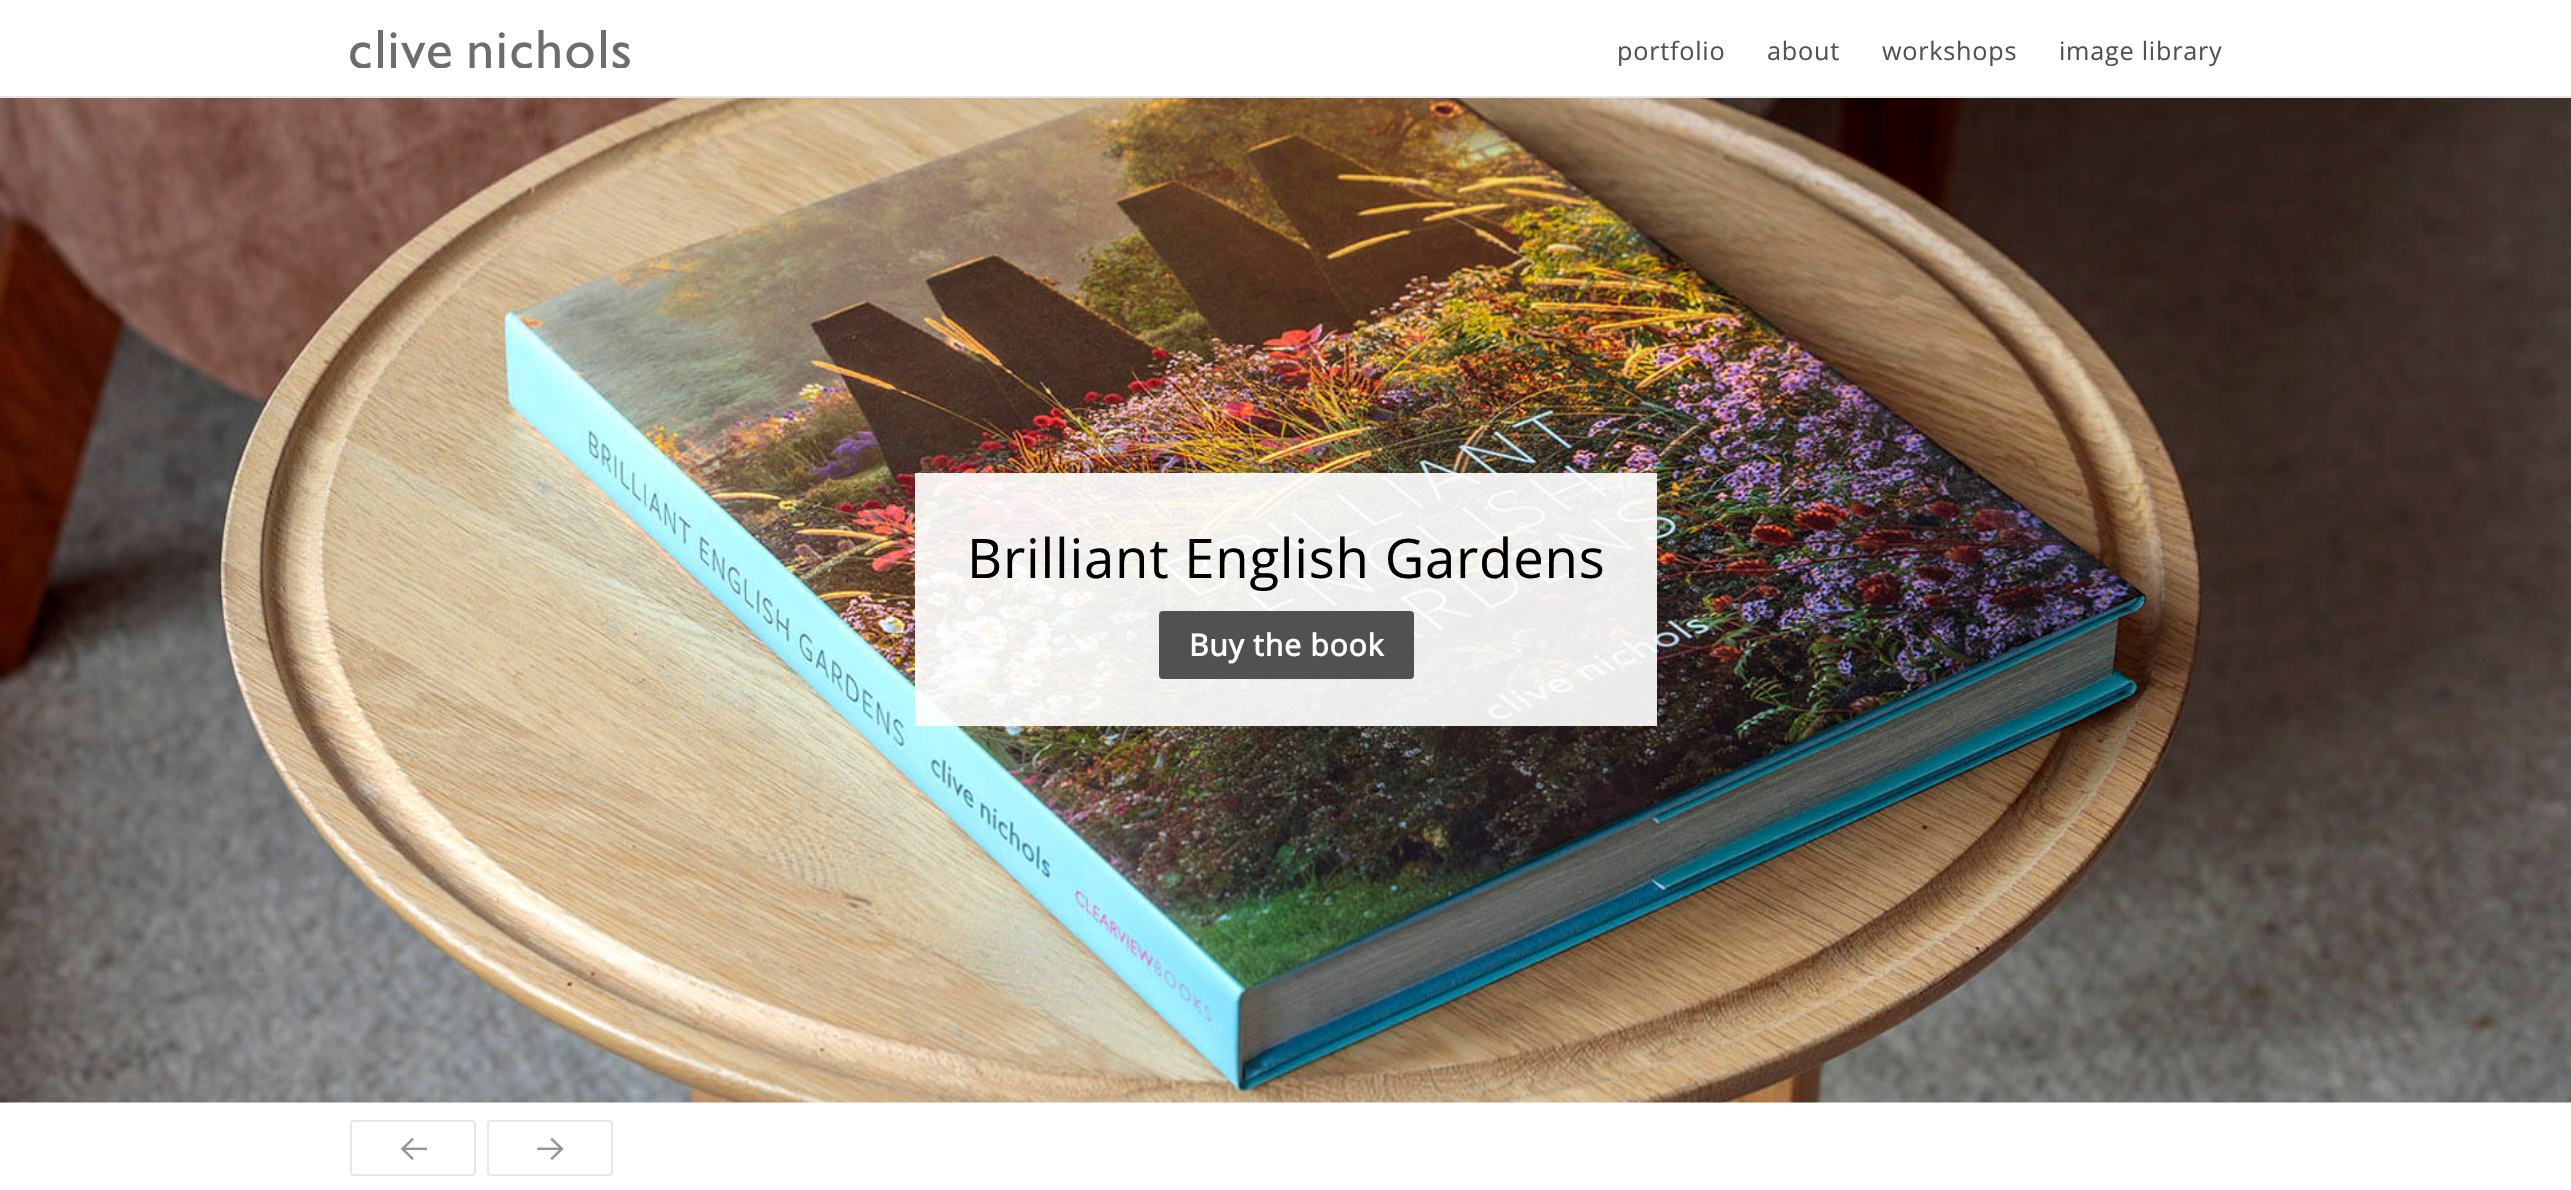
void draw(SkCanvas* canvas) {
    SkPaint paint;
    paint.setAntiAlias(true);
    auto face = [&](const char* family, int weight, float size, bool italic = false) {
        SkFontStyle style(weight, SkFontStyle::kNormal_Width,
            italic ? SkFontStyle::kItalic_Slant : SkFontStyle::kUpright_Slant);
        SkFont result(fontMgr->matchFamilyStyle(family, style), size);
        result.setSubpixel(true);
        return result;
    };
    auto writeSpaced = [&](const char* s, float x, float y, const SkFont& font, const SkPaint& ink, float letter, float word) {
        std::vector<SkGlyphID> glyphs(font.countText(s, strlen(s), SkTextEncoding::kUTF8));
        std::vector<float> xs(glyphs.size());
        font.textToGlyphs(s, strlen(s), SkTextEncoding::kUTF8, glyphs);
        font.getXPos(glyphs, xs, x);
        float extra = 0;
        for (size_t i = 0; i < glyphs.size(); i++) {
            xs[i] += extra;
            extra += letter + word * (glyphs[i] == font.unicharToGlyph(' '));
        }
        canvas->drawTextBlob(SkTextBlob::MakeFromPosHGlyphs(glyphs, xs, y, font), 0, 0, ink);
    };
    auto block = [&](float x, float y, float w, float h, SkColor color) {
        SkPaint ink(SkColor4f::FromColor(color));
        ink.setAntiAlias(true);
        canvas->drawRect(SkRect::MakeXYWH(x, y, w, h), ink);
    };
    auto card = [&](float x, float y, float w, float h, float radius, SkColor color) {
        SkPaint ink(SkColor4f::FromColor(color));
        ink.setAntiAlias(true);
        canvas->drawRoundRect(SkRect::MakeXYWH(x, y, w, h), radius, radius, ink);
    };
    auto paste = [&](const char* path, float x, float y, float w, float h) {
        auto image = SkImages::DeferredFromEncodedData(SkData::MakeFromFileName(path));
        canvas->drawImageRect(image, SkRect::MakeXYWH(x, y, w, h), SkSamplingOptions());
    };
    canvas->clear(SK_ColorWHITE);
    block(0, 96, 2571, 2, SkColorSetRGB(230, 230, 230));
    paste("pic1.png", 350, 30, 280, 38);
    auto kFont1 = face("Open Sans", 400, 25.25f);
    paint.setColor(SkColorSetRGB(81, 81, 81));
    writeSpaced("portfolio", 1617, 60, kFont1, paint, 0.75f, 0);
    writeSpaced("about", 1767, 60, kFont1, paint, 0.75f, 0);
    writeSpaced("workshops", 1882, 60, kFont1, paint, 0.75f, 0);
    writeSpaced("image library", 2059, 60, kFont1, paint, 0.75f, 0);
    paste("pic2.png", 0, 98, 2571, 1005);
    block(915, 473, 742, 253, SkColorSetARGB(232, 255, 255, 255));
    auto kFont2 = face("Open Sans", 400, 54.5f);
    paint.setColor(SK_ColorBLACK);
    writeSpaced("Brilliant English Gardens", 967, 578, kFont2, paint, 0.75f, 0);
    card(1159, 611, 255, 68, 4, SkColorSetRGB(81, 81, 81));
    auto kFont3 = face("Open Sans", 700, 30.25f);
    paint.setColor(SK_ColorWHITE);
    writeSpaced("Buy the book", 1189, 656, kFont3, paint, 0.75f, 0);
    paste("pic3.png", 400, 1137, 27, 23);
    paint.setStyle(SkPaint::kStroke_Style);
    paint.setStrokeWidth(2);
    paint.setColor(SkColorSetRGB(232, 232, 232));
    canvas->drawRoundRect(SkRect::MakeXYWH(351, 1121, 124, 54), 3, 3, paint);
    paste("pic4.png", 537, 1137, 27, 23);
    canvas->drawRoundRect(SkRect::MakeXYWH(488, 1121, 124, 54), 3, 3, paint);
}
